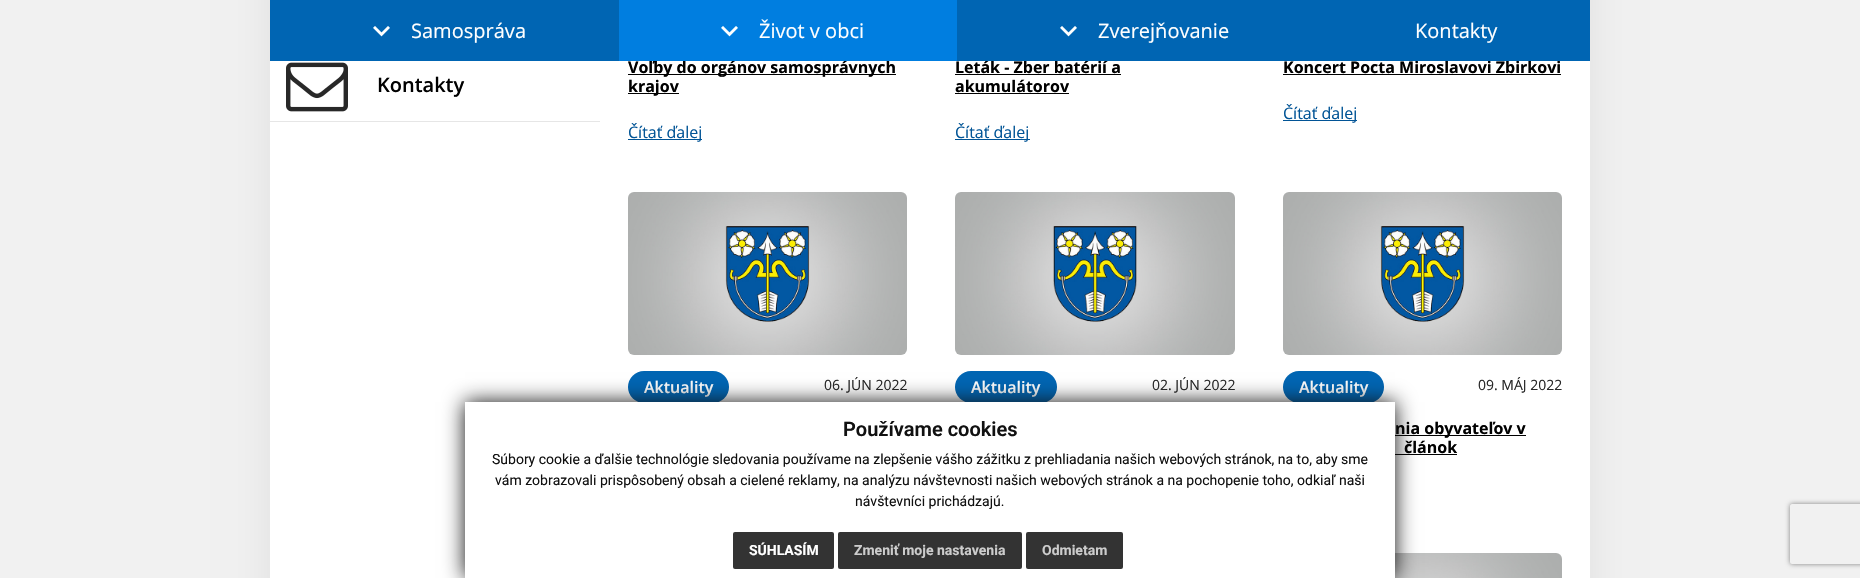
void draw(SkCanvas* canvas) {
    SkPaint paint;
    paint.setAntiAlias(true);
    auto face = [&](const char* family, int weight, float size, bool italic = false) {
        SkFontStyle style(weight, SkFontStyle::kNormal_Width,
            italic ? SkFontStyle::kItalic_Slant : SkFontStyle::kUpright_Slant);
        SkFont result(fontMgr->matchFamilyStyle(family, style), size);
        result.setSubpixel(true);
        return result;
    };
    auto write = [&](const char* s, float x, float y, const SkFont& font, SkColor color) {
        SkPaint ink(SkColor4f::FromColor(color));
        ink.setAntiAlias(true);
        canvas->drawString(s, x, y, font, ink);
    };
    auto block = [&](float x, float y, float w, float h, SkColor color) {
        SkPaint ink(SkColor4f::FromColor(color));
        ink.setAntiAlias(true);
        canvas->drawRect(SkRect::MakeXYWH(x, y, w, h), ink);
    };
    auto card = [&](float x, float y, float w, float h, float radius, SkColor color) {
        SkPaint ink(SkColor4f::FromColor(color));
        ink.setAntiAlias(true);
        canvas->drawRoundRect(SkRect::MakeXYWH(x, y, w, h), radius, radius, ink);
    };
    auto paste = [&](const char* path, float x, float y, float w, float h) {
        auto image = SkImages::DeferredFromEncodedData(SkData::MakeFromFileName(path));
        canvas->drawImageRect(image, SkRect::MakeXYWH(x, y, w, h), SkSamplingOptions());
    };
    canvas->clear(SkColorSetRGB(241, 241, 241));
    paint.setColor(SkColorSetARGB(18, 0, 0, 0));
    paint.setMaskFilter(SkMaskFilter::MakeBlur(kNormal_SkBlurStyle, 20));
    canvas->drawRect(SkRect::MakeXYWH(270, -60, 1320, 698), paint);
    paint.setMaskFilter(nullptr);
    block(270, 61, 1320, 517, SK_ColorWHITE);
    block(628, 74, 268, 1, SK_ColorBLACK);
    auto kFont1 = face("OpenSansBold", 700, 16);
    write("Voľby do orgánov samosprávnych", 628, 73, kFont1, SK_ColorBLACK);
    write("Leták - Zber batérií a", 955, 73, kFont1, SK_ColorBLACK);
    write("Koncert Pocta Miroslavovi Žbirkovi", 1283, 73, kFont1, SK_ColorBLACK);
    block(270, 0, 1320, 61, SkColorSetRGB(0, 101, 179));
    paste("pic1.png", 373, 26, 17, 11);
    auto kFont2 = face("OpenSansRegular", 400, 20);
    write("Samospráva", 411, 38, kFont2, SK_ColorWHITE);
    block(619, 0, 338, 61, SkColorSetRGB(0, 126, 224));
    paste("pic2.png", 721, 26, 17, 11);
    write("Život v obci", 759, 38, kFont2, SK_ColorWHITE);
    paste("pic1.png", 1060, 26, 17, 11);
    write("Zverejňovanie", 1098, 38, kFont2, SK_ColorWHITE);
    write("Kontakty", 1415, 38, kFont2, SK_ColorWHITE);
    block(270, 121, 330, 1, SkColorSetRGB(230, 230, 230));
    paste("pic3.png", 286, 62, 62, 50);
    auto kFont3 = face("Open Sans", 600, 20);
    write("Kontakty", 377, 92, kFont3, SK_ColorBLACK);
    block(628, 93, 51, 1, SK_ColorBLACK);
    write("krajov", 628, 92, kFont1, SK_ColorBLACK);
    block(628, 139, 74, 1, SkColorSetRGB(1, 84, 150));
    auto kFont4 = face("OpenSansRegular", 400, 16);
    write("Čítať ďalej", 628, 138, kFont4, SkColorSetRGB(1, 84, 150));
    block(955, 74, 166, 1, SK_ColorBLACK);
    write("akumulátorov", 955, 92, kFont1, SK_ColorBLACK);
    block(955, 93, 114, 1, SK_ColorBLACK);
    block(955, 139, 75, 1, SkColorSetRGB(1, 84, 150));
    write("Čítať ďalej", 955, 138, kFont4, SkColorSetRGB(1, 84, 150));
    block(1283, 74, 278, 1, SK_ColorBLACK);
    block(1283, 120, 74, 1, SkColorSetRGB(1, 84, 150));
    write("Čítať ďalej", 1283, 119, kFont4, SkColorSetRGB(1, 84, 150));
    paste("pic4.png", 628, 192, 279, 163);
    card(628, 371, 101, 32, 16, SkColorSetRGB(0, 101, 179));
    auto kFont5 = face("Open Sans", 600, 16);
    write("Aktuality", 644, 393, kFont5, SK_ColorWHITE);
    auto kFont6 = face("OpenSansRegular", 400, 14);
    write("06. JÚN 2022", 824, 390, kFont6, SkColorSetRGB(40, 40, 40));
    paste("pic5.png", 955, 192, 280, 163);
    card(955, 371, 102, 32, 16, SkColorSetRGB(0, 101, 179));
    write("Aktuality", 971, 393, kFont5, SK_ColorWHITE);
    write("02. JÚN 2022", 1152, 390, kFont6, SkColorSetRGB(40, 40, 40));
    paste("pic4.png", 1283, 192, 279, 163);
    card(1283, 371, 101, 32, 16, SkColorSetRGB(0, 101, 179));
    write("Aktuality", 1299, 393, kFont5, SK_ColorWHITE);
    write("09. MÁJ 2022", 1478, 390, kFont6, SkColorSetRGB(40, 40, 40));
    block(1395, 435, 131, 1, SK_ColorBLACK);
    write("nia obyvateľov v", 1395, 434, kFont1, SK_ColorBLACK);
    write("článok", 1404, 453, kFont1, SK_ColorBLACK);
    block(1395, 454, 62, 1, SK_ColorBLACK);
    paste("pic6.png", 1395, 553, 167, 25);
    paint.setColor(SkColorSetRGB(17, 17, 17));
    paint.setMaskFilter(SkMaskFilter::MakeBlur(kNormal_SkBlurStyle, 10));
    canvas->drawRect(SkRect::MakeXYWH(465, 402, 930, 176), paint);
    paint.setMaskFilter(nullptr);
    block(465, 402, 930, 176, SK_ColorWHITE);
    auto kFont7 = face("Roboto", 600, 20);
    write("Používame cookies", 843, 436, kFont7, SkColorSetRGB(17, 17, 17));
    auto kFont8 = face("Roboto", 400, 14);
    write("Súbory cookie a ďalšie technológie sledovania používame na zlepšenie vášho zážitku z prehliadania našich webových stránok, na to, aby sme", 492, 464, kFont8, SkColorSetRGB(17, 17, 17));
    write("vám zobrazovali prispôsobený obsah a cielené reklamy, na analýzu návštevnosti našich webových stránok a na pochopenie toho, odkiaľ naši", 495, 485, kFont8, SkColorSetRGB(17, 17, 17));
    write("návštevníci prichádzajú.", 855, 506, kFont8, SkColorSetRGB(17, 17, 17));
    card(733, 532, 101, 37, 2, SkColorSetRGB(51, 51, 51));
    auto kFont9 = face("Roboto", 700, 14);
    write("SÚHLASÍM", 749, 555, kFont9, SK_ColorWHITE);
    card(838, 532, 184, 37, 2, SkColorSetRGB(51, 51, 51));
    write("Zmeniť moje nastavenia", 854, 555, kFont9, SkColorSetRGB(204, 204, 204));
    card(1026, 532, 97, 37, 2, SkColorSetRGB(51, 51, 51));
    write("Odmietam", 1042, 555, kFont9, SkColorSetRGB(204, 204, 204));
    canvas->save();
    canvas->clipPath(SkPathBuilder(SkPathFillType::kEvenOdd).moveTo(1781, 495).lineTo(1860, 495).lineTo(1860, 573).lineTo(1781, 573).close().moveTo(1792, 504).lineTo(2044, 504).cubicTo(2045, 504, 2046, 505, 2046, 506).lineTo(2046, 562).cubicTo(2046, 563, 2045, 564, 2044, 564).lineTo(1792, 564).cubicTo(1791, 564, 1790, 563, 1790, 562).lineTo(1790, 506).cubicTo(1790, 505, 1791, 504, 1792, 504).close().detach(), true);
    paint.setColor(SkColorSetRGB(128, 128, 128));
    paint.setMaskFilter(SkMaskFilter::MakeBlur(kNormal_SkBlurStyle, 2.5f));
    canvas->drawRoundRect(SkRect::MakeXYWH(1790, 504, 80, 60), 2, 2, paint);
    paint.setMaskFilter(nullptr);
    canvas->restore();
}
